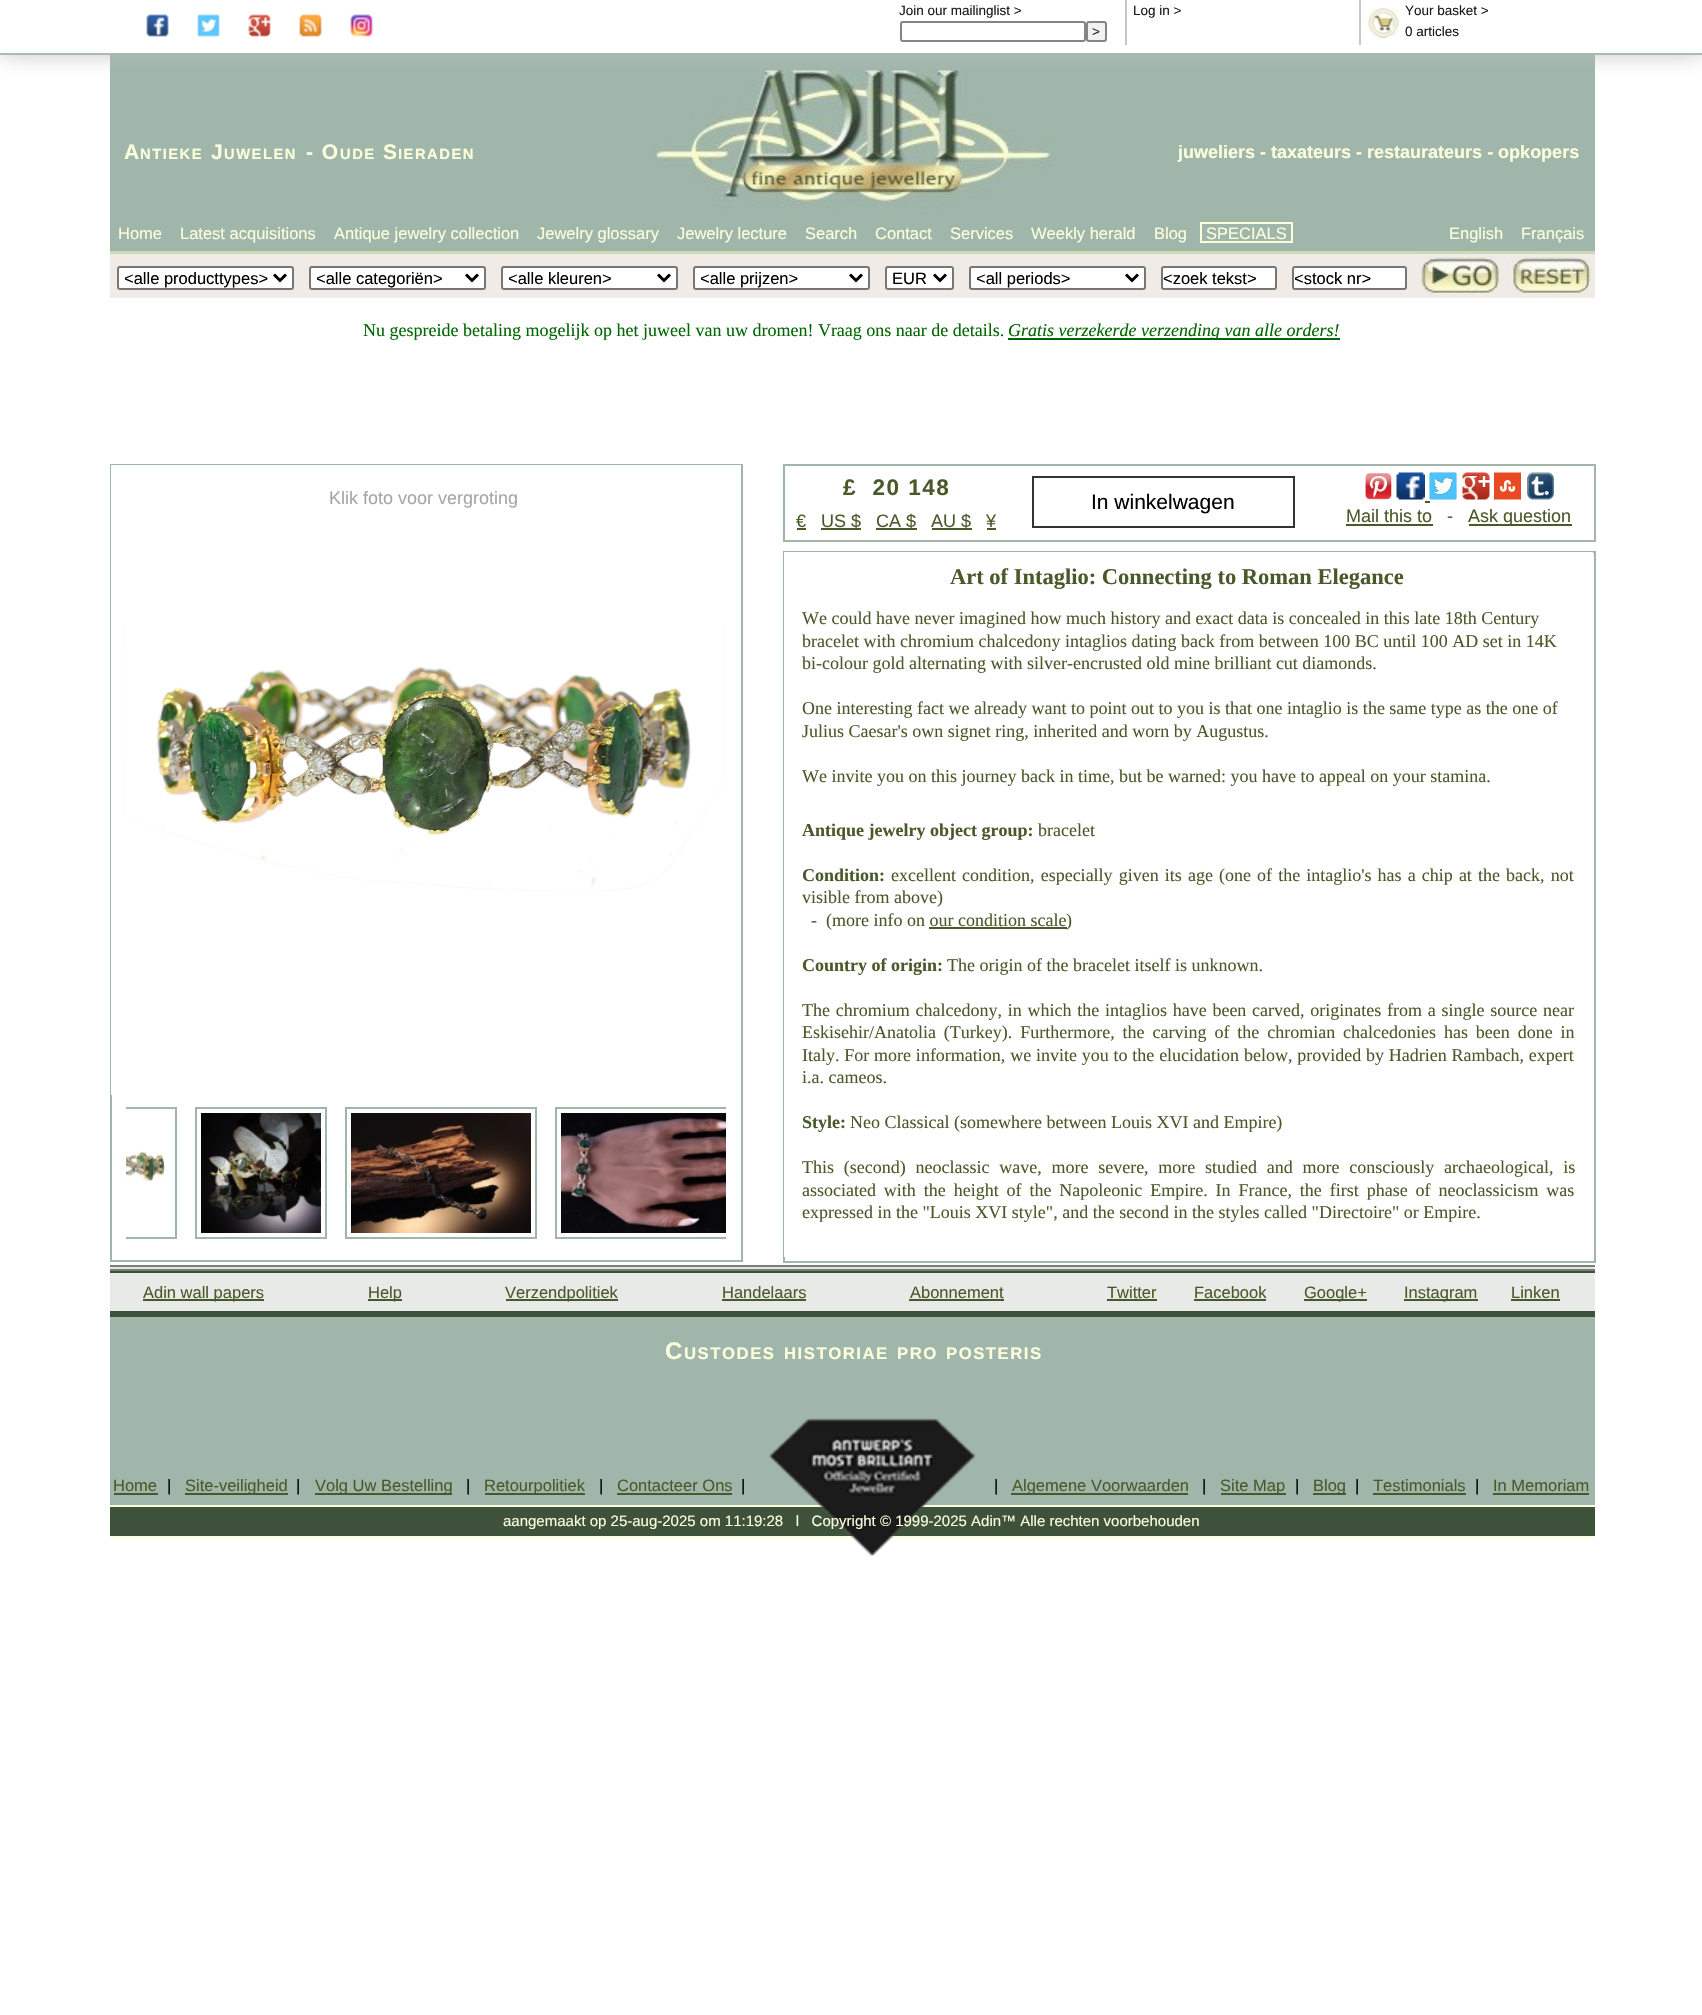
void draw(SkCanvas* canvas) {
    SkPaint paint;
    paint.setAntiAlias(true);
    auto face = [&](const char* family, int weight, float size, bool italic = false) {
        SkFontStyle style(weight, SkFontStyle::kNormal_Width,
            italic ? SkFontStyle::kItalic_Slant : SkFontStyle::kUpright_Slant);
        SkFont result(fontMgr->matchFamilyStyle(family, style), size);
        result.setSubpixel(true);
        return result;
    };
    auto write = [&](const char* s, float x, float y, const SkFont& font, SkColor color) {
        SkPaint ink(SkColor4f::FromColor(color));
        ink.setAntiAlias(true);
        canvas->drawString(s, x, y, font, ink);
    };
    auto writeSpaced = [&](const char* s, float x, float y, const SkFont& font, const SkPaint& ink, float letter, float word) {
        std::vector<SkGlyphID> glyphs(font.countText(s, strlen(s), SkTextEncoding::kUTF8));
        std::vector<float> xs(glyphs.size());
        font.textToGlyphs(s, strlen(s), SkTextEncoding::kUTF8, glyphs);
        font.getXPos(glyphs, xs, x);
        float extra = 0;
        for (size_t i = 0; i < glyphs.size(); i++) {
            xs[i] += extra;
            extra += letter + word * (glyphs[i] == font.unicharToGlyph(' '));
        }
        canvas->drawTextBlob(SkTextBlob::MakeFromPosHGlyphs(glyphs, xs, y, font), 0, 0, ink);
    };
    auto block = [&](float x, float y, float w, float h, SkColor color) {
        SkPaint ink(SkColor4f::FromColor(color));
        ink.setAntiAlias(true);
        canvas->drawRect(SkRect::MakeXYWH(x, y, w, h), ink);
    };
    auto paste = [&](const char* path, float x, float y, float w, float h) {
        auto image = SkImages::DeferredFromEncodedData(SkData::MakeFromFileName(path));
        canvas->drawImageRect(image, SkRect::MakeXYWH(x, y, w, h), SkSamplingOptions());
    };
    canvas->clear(SK_ColorWHITE);
    block(110, 54, 1485, 197, SkColorSetRGB(160, 182, 170));
    paste("pic7.png", 651, 68, 400, 146);
    canvas->save();
    canvas->clipRect(SkRect::MakeXYWH(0, 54, 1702, 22));
    paint.setColor(SkColorSetARGB(230, 187, 187, 187));
    paint.setMaskFilter(SkMaskFilter::MakeBlur(kNormal_SkBlurStyle, 11));
    canvas->drawRect(SkRect::MakeXYWH(0, 0, 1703, 54), paint);
    paint.setMaskFilter(nullptr);
    canvas->restore();
    block(0, 53, 1702, 2, SkColorSetARGB(230, 160, 182, 170));
    paste("pic1.png", 146, 14, 23, 23);
    paste("pic2.png", 197, 14, 23, 23);
    paste("pic3.png", 248, 14, 23, 23);
    paste("pic4.png", 299, 14, 23, 23);
    paste("pic5.png", 350, 14, 23, 23);
    block(1125, 0, 2, 45, SkColorSetRGB(198, 198, 198));
    auto kFont1 = face("Liberation Sans", 400, 13.5f);
    write("Join our mailinglist >", 899, 15, kFont1, SkColorSetRGB(26, 26, 26));
    paint.setStyle(SkPaint::kStroke_Style);
    paint.setStrokeWidth(2);
    paint.setColor(SkColorSetRGB(132, 132, 132));
    canvas->drawRoundRect(SkRect::MakeXYWH(901, 22, 184, 19), 2, 2, paint);
    paint.setStyle(SkPaint::kFill_Style);
    paint.setColor(SkColorSetRGB(241, 241, 241));
    canvas->drawRoundRect(SkRect::MakeXYWH(1087, 22, 19, 19), 2, 2, paint);
    paint.setStyle(SkPaint::kStroke_Style);
    paint.setColor(SkColorSetRGB(132, 132, 132));
    canvas->drawRoundRect(SkRect::MakeXYWH(1087, 22, 19, 19), 2, 2, paint);
    write(">", 1092, 36, kFont1, SkColorSetRGB(26, 26, 26));
    block(1359, 0, 2, 45, SkColorSetRGB(198, 198, 198));
    write("Log in >", 1133, 15, kFont1, SkColorSetRGB(26, 26, 26));
    paste("pic6.png", 1367, 8, 32, 30);
    write("Your basket >", 1405, 15, kFont1, SkColorSetRGB(26, 26, 26));
    write("0 articles", 1405, 36, kFont1, SkColorSetRGB(26, 26, 26));
    auto kFont2 = face("Liberation Sans", 700, 21);
    paint.setStyle(SkPaint::kFill_Style);
    paint.setColor(SkColorSetRGB(251, 255, 220));
    writeSpaced("A", 124, 159, kFont2, paint, 1.5f, 0);
    auto kFont3 = face("Liberation Sans", 700, 14.75f);
    writeSpaced("NTIEKE", 140, 159, kFont3, paint, 1.5f, 0);
    writeSpaced("J", 211, 159, kFont2, paint, 1.5f, 0);
    writeSpaced("UWELEN", 224, 159, kFont3, paint, 1.5f, 0);
    writeSpaced("- O", 306, 159, kFont2, paint, 1.5f, 0);
    writeSpaced("UDE", 340, 159, kFont3, paint, 1.5f, 0);
    writeSpaced("S", 383, 159, kFont2, paint, 1.5f, 0);
    writeSpaced("IERADEN", 398, 159, kFont3, paint, 1.5f, 0);
    auto kFont4 = face("Liberation Sans", 700, 18);
    write("juweliers - taxateurs - restaurateurs - opkopers", 1178, 158, kFont4, SkColorSetRGB(251, 255, 220));
    block(110, 251, 1485, 3, SkColorSetRGB(204, 216, 178));
    auto kFont5 = face("Liberation Sans", 400, 16.5f);
    write("Home", 118, 239, kFont5, SkColorSetRGB(251, 255, 220));
    write("Latest acquisitions", 180, 239, kFont5, SkColorSetRGB(251, 255, 220));
    write("Antique jewelry collection", 334, 239, kFont5, SkColorSetRGB(251, 255, 220));
    write("Jewelry glossary", 537, 239, kFont5, SkColorSetRGB(251, 255, 220));
    write("Jewelry lecture", 677, 239, kFont5, SkColorSetRGB(251, 255, 220));
    write("Search", 805, 239, kFont5, SkColorSetRGB(251, 255, 220));
    write("Contact", 875, 239, kFont5, SkColorSetRGB(251, 255, 220));
    write("Services", 950, 239, kFont5, SkColorSetRGB(251, 255, 220));
    write("Weekly herald", 1031, 239, kFont5, SkColorSetRGB(251, 255, 220));
    write("Blog", 1154, 239, kFont5, SkColorSetRGB(251, 255, 220));
    paint.setStyle(SkPaint::kStroke_Style);
    canvas->drawRect(SkRect::MakeXYWH(1201, 223, 91, 19), paint);
    write("SPECIALS", 1206, 239, kFont5, SkColorSetRGB(251, 255, 220));
    write("English", 1449, 239, kFont5, SkColorSetRGB(251, 255, 220));
    write("Français", 1521, 239, kFont5, SkColorSetRGB(251, 255, 220));
    block(110, 254, 1485, 44, SkColorSetRGB(240, 235, 231));
    paint.setStyle(SkPaint::kFill_Style);
    paint.setColor(SK_ColorWHITE);
    canvas->drawRoundRect(SkRect::MakeXYWH(118, 267, 175, 22), 2, 2, paint);
    paint.setStyle(SkPaint::kStroke_Style);
    paint.setColor(SkColorSetRGB(118, 118, 118));
    canvas->drawRoundRect(SkRect::MakeXYWH(118, 267, 175, 22), 2, 2, paint);
    paint.setStrokeWidth(3);
    paint.setColor(SK_ColorBLACK);
    canvas->drawPath(SkPathBuilder().moveTo(274, 274.5f).lineTo(280, 280.5f).lineTo(286, 274.5f).detach(), paint);
    canvas->save();
    canvas->clipRect(SkRect::MakeXYWH(125, 267, 144, 21));
    write("<alle producttypes>", 124, 284, kFont5, SK_ColorBLACK);
    canvas->restore();
    paint.setStyle(SkPaint::kFill_Style);
    paint.setColor(SK_ColorWHITE);
    canvas->drawRoundRect(SkRect::MakeXYWH(310, 267, 175, 22), 2, 2, paint);
    paint.setStyle(SkPaint::kStroke_Style);
    paint.setStrokeWidth(2);
    paint.setColor(SkColorSetRGB(118, 118, 118));
    canvas->drawRoundRect(SkRect::MakeXYWH(310, 267, 175, 22), 2, 2, paint);
    paint.setStrokeWidth(3);
    paint.setColor(SK_ColorBLACK);
    canvas->drawPath(SkPathBuilder().moveTo(466, 274.5f).lineTo(472, 280.5f).lineTo(478, 274.5f).detach(), paint);
    canvas->save();
    canvas->clipRect(SkRect::MakeXYWH(317, 267, 144, 21));
    write("<alle categoriën>", 316, 284, kFont5, SK_ColorBLACK);
    canvas->restore();
    paint.setStyle(SkPaint::kFill_Style);
    paint.setColor(SK_ColorWHITE);
    canvas->drawRoundRect(SkRect::MakeXYWH(502, 267, 175, 22), 2, 2, paint);
    paint.setStyle(SkPaint::kStroke_Style);
    paint.setStrokeWidth(2);
    paint.setColor(SkColorSetRGB(118, 118, 118));
    canvas->drawRoundRect(SkRect::MakeXYWH(502, 267, 175, 22), 2, 2, paint);
    paint.setStrokeWidth(3);
    paint.setColor(SK_ColorBLACK);
    canvas->drawPath(SkPathBuilder().moveTo(658, 274.5f).lineTo(664, 280.5f).lineTo(670, 274.5f).detach(), paint);
    canvas->save();
    canvas->clipRect(SkRect::MakeXYWH(509, 267, 144, 21));
    write("<alle kleuren>", 508, 284, kFont5, SK_ColorBLACK);
    canvas->restore();
    paint.setStyle(SkPaint::kFill_Style);
    paint.setColor(SK_ColorWHITE);
    canvas->drawRoundRect(SkRect::MakeXYWH(694, 267, 175, 22), 2, 2, paint);
    paint.setStyle(SkPaint::kStroke_Style);
    paint.setStrokeWidth(2);
    paint.setColor(SkColorSetRGB(118, 118, 118));
    canvas->drawRoundRect(SkRect::MakeXYWH(694, 267, 175, 22), 2, 2, paint);
    paint.setStrokeWidth(3);
    paint.setColor(SK_ColorBLACK);
    canvas->drawPath(SkPathBuilder().moveTo(850, 274.5f).lineTo(856, 280.5f).lineTo(862, 274.5f).detach(), paint);
    canvas->save();
    canvas->clipRect(SkRect::MakeXYWH(701, 267, 144, 21));
    write("<alle prijzen>", 700, 284, kFont5, SK_ColorBLACK);
    canvas->restore();
    paint.setStyle(SkPaint::kFill_Style);
    paint.setColor(SK_ColorWHITE);
    canvas->drawRoundRect(SkRect::MakeXYWH(886, 267, 67, 22), 2, 2, paint);
    paint.setStyle(SkPaint::kStroke_Style);
    paint.setStrokeWidth(2);
    paint.setColor(SkColorSetRGB(118, 118, 118));
    canvas->drawRoundRect(SkRect::MakeXYWH(886, 267, 67, 22), 2, 2, paint);
    paint.setStrokeWidth(3);
    paint.setColor(SK_ColorBLACK);
    canvas->drawPath(SkPathBuilder().moveTo(934, 274.5f).lineTo(940, 280.5f).lineTo(946, 274.5f).detach(), paint);
    write("EUR", 892, 284, kFont5, SK_ColorBLACK);
    paint.setStyle(SkPaint::kFill_Style);
    paint.setColor(SK_ColorWHITE);
    canvas->drawRoundRect(SkRect::MakeXYWH(970, 267, 175, 22), 2, 2, paint);
    paint.setStyle(SkPaint::kStroke_Style);
    paint.setStrokeWidth(2);
    paint.setColor(SkColorSetRGB(118, 118, 118));
    canvas->drawRoundRect(SkRect::MakeXYWH(970, 267, 175, 22), 2, 2, paint);
    paint.setStrokeWidth(3);
    paint.setColor(SK_ColorBLACK);
    canvas->drawPath(SkPathBuilder().moveTo(1126, 274.5f).lineTo(1132, 280.5f).lineTo(1138, 274.5f).detach(), paint);
    canvas->save();
    canvas->clipRect(SkRect::MakeXYWH(977, 267, 144, 21));
    write("<all periods>", 976, 284, kFont5, SK_ColorBLACK);
    canvas->restore();
    paint.setStyle(SkPaint::kFill_Style);
    paint.setColor(SK_ColorWHITE);
    canvas->drawRoundRect(SkRect::MakeXYWH(1162, 267, 114, 22), 2, 2, paint);
    paint.setStyle(SkPaint::kStroke_Style);
    paint.setStrokeWidth(2);
    paint.setColor(SkColorSetRGB(118, 118, 118));
    canvas->drawRoundRect(SkRect::MakeXYWH(1162, 267, 114, 22), 2, 2, paint);
    write("<zoek tekst>", 1163, 284, kFont5, SK_ColorBLACK);
    paint.setStyle(SkPaint::kFill_Style);
    paint.setColor(SK_ColorWHITE);
    canvas->drawRoundRect(SkRect::MakeXYWH(1293, 267, 113, 22), 2, 2, paint);
    paint.setStyle(SkPaint::kStroke_Style);
    paint.setColor(SkColorSetRGB(118, 118, 118));
    canvas->drawRoundRect(SkRect::MakeXYWH(1293, 267, 113, 22), 2, 2, paint);
    canvas->save();
    canvas->clipRect(SkRect::MakeXYWH(1295, 269, 109, 18));
    write("<stock nr>", 1294, 284, kFont5, SK_ColorBLACK);
    canvas->restore();
    paste("pic8.png", 1419, 255, 82, 40);
    paste("pic9.png", 1505, 255, 88, 39);
    auto kFont6 = face("Liberation Serif", 400, 18);
    write("Nu gespreide betaling mogelijk op het juweel van uw dromen! Vraag ons naar de details.", 363, 336, kFont6, SkColorSetRGB(0, 102, 0));
    block(1008, 338, 332, 2, SkColorSetRGB(0, 102, 0));
    auto kFont7 = face("Liberation Serif", 400, 18, true);
    write("Gratis verzekerde verzending van alle orders!", 1008, 336, kFont7, SkColorSetRGB(0, 102, 0));
    paint.setColor(SkColorSetRGB(160, 182, 170));
    canvas->drawRect(SkRect::MakeXYWH(111, 465, 631, 796), paint);
    block(111, 465, 630, 630, SK_ColorWHITE);
    auto kFont8 = face("Liberation Sans", 400, 18);
    write("Klik foto voor vergroting", 329, 504, kFont8, SkColorSetRGB(166, 166, 166));
    paste("pic10.png", 124, 624, 601, 267);
    canvas->save();
    canvas->clipRect(SkRect::MakeXYWH(126, 1107, 600, 135));
    canvas->drawRect(SkRect::MakeXYWH(46, 1108, 130, 130), paint);
    canvas->restore();
    paste("pic11.png", 126, 1151, 40, 32);
    canvas->drawRect(SkRect::MakeXYWH(196, 1108, 130, 130), paint);
    paste("pic12.png", 201, 1113, 120, 120);
    canvas->drawRect(SkRect::MakeXYWH(346, 1108, 190, 130), paint);
    paste("pic13.png", 351, 1113, 180, 120);
    canvas->save();
    canvas->clipRect(SkRect::MakeXYWH(126, 1107, 600, 135));
    canvas->drawRect(SkRect::MakeXYWH(556, 1108, 190, 130), paint);
    canvas->restore();
    paste("pic14.png", 561, 1113, 165, 120);
    canvas->drawRect(SkRect::MakeXYWH(784, 465, 811, 76), paint);
    auto kFont9 = face("Liberation Sans", 700, 22.5f);
    paint.setStyle(SkPaint::kFill_Style);
    paint.setColor(SkColorSetRGB(74, 89, 41));
    writeSpaced("£  20 148", 843, 495, kFont9, paint, 1.5f, 0);
    write("€", 796, 527, kFont8, SkColorSetRGB(74, 89, 41));
    block(797, 528, 9, 2, SkColorSetRGB(74, 89, 41));
    block(821, 528, 40, 2, SkColorSetRGB(74, 89, 41));
    write("US $", 821, 527, kFont8, SkColorSetRGB(74, 89, 41));
    block(876, 528, 41, 2, SkColorSetRGB(74, 89, 41));
    write("CA $", 876, 527, kFont8, SkColorSetRGB(74, 89, 41));
    block(932, 528, 40, 2, SkColorSetRGB(74, 89, 41));
    write("AU $", 931, 527, kFont8, SkColorSetRGB(74, 89, 41));
    write("¥", 986, 527, kFont8, SkColorSetRGB(74, 89, 41));
    block(987, 528, 9, 2, SkColorSetRGB(74, 89, 41));
    paint.setStyle(SkPaint::kStroke_Style);
    paint.setColor(SkColorSetRGB(51, 51, 51));
    canvas->drawRect(SkRect::MakeXYWH(1033, 477, 261, 50), paint);
    auto kFont10 = face("Liberation Sans", 400, 21);
    write("In winkelwagen", 1091, 509, kFont10, SK_ColorBLACK);
    paste("pic15.png", 1365, 472, 27, 28);
    paste("pic16.png", 1396, 472, 29, 28);
    paste("pic17.png", 1429, 472, 28, 28);
    paste("pic18.png", 1462, 472, 28, 28);
    paste("pic19.png", 1494, 472, 27, 28);
    paste("pic20.png", 1527, 472, 27, 28);
    block(1425, 501, 5, 2, SkColorSetRGB(74, 89, 41));
    write("Mail this to", 1346, 522, kFont8, SkColorSetRGB(74, 89, 41));
    block(1346, 524, 87, 2, SkColorSetRGB(74, 89, 41));
    write("-", 1447, 522, kFont8, SkColorSetRGB(74, 89, 41));
    block(1469, 524, 103, 2, SkColorSetRGB(74, 89, 41));
    write("Ask question", 1468, 522, kFont8, SkColorSetRGB(74, 89, 41));
    paint.setColor(SkColorSetRGB(160, 182, 170));
    canvas->drawRect(SkRect::MakeXYWH(784, 552, 811, 710), paint);
    block(784, 552, 809, 705, SK_ColorWHITE);
    auto kFont11 = face("Liberation Serif", 700, 22.5f);
    write("Art of Intaglio: Connecting to Roman Elegance", 950, 584, kFont11, SkColorSetRGB(74, 89, 41));
    write("We could have never imagined how much history and exact data is concealed in this late 18th Century", 802, 624, kFont6, SkColorSetRGB(74, 89, 41));
    write("bracelet with chromium chalcedony intaglios dating back from between 100 BC until 100 AD set in 14K", 802, 647, kFont6, SkColorSetRGB(74, 89, 41));
    write("bi-colour gold alternating with silver-encrusted old mine brilliant cut diamonds.", 802, 669, kFont6, SkColorSetRGB(74, 89, 41));
    write("One interesting fact we already want to point out to you is that one intaglio is the same type as the one of", 802, 714, kFont6, SkColorSetRGB(74, 89, 41));
    write("Julius Caesar's own signet ring, inherited and worn by Augustus.", 802, 737, kFont6, SkColorSetRGB(74, 89, 41));
    write("We invite you on this journey back in time, but be warned: you have to appeal on your stamina.", 802, 782, kFont6, SkColorSetRGB(74, 89, 41));
    auto kFont12 = face("Liberation Serif", 700, 18);
    write("Antique jewelry object group:", 802, 836, kFont12, SkColorSetRGB(74, 89, 41));
    write("bracelet", 1038, 836, kFont6, SkColorSetRGB(74, 89, 41));
    write("Condition:", 802, 881, kFont12, SkColorSetRGB(74, 89, 41));
    paint.setStyle(SkPaint::kFill_Style);
    paint.setColor(SkColorSetRGB(74, 89, 41));
    writeSpaced("excellent condition, especially given its age", 891, 881, kFont6, paint, 0, 1.6f);
    writeSpaced("(one of the intaglio's has a chip at the back, not", 1219, 881, kFont6, paint, 0, 1.6f);
    write("visible from above)", 802, 903, kFont6, SkColorSetRGB(74, 89, 41));
    write("-  (more info on our condition scale", 811, 926, kFont6, SkColorSetRGB(74, 89, 41));
    block(929, 927, 138, 2, SkColorSetRGB(74, 89, 41));
    write(")", 1066, 926, kFont6, SkColorSetRGB(74, 89, 41));
    write("Country of origin:", 802, 971, kFont12, SkColorSetRGB(74, 89, 41));
    write("The origin of the bracelet itself is unknown.", 947, 971, kFont6, SkColorSetRGB(74, 89, 41));
    writeSpaced("The chromium chalcedony, in which the intaglios have been carved, originates from a single source near", 802, 1016, kFont6, paint, 0, 1.25f);
    writeSpaced("Eskisehir/Anatolia (Turkey). Furthermore, the carving of the chromian chalcedonies has been done in", 802, 1038, kFont6, paint, 0, 3.4f);
    writeSpaced("Italy. For more information, we invite you to the elucidation below, provided by Hadrien Rambach, expert", 802, 1061, kFont6, paint, 0, 0.3f);
    write("i.a. cameos.", 802, 1083, kFont6, SkColorSetRGB(74, 89, 41));
    write("Style:", 802, 1128, kFont12, SkColorSetRGB(74, 89, 41));
    write("Neo Classical (somewhere between Louis XVI and Empire)", 850, 1128, kFont6, SkColorSetRGB(74, 89, 41));
    writeSpaced("This (second) neoclassic wave, more severe, more studied and more consciously archaeological, is", 802, 1173, kFont6, paint, 0, 5.25f);
    writeSpaced("associated with the height of the Napoleonic Empire. In France, the first phase of neoclassicism was", 802, 1196, kFont6, paint, 0, 3.4f);
    write("expressed in the \"Louis XVI style\", and the second in the styles called \"Directoire\" or Empire.", 802, 1218, kFont6, SkColorSetRGB(74, 89, 41));
    block(110, 1267, 1485, 2, SkColorSetRGB(222, 234, 220));
    block(110, 1265, 1485, 2, SkColorSetRGB(120, 127, 119));
    block(110, 1269, 1485, 2, SkColorSetRGB(120, 127, 119));
    block(110, 1273, 1485, 38, SkColorSetRGB(232, 234, 231));
    block(110, 1271, 1485, 2, SkColorSetRGB(62, 81, 59));
    block(110, 1311, 1485, 6, SkColorSetRGB(62, 81, 59));
    block(143, 1299, 121, 2, SkColorSetRGB(74, 89, 41));
    write("Adin wall papers", 143, 1298, kFont5, SkColorSetRGB(74, 89, 41));
    block(368, 1299, 34, 2, SkColorSetRGB(74, 89, 41));
    write("Help", 368, 1298, kFont5, SkColorSetRGB(74, 89, 41));
    block(506, 1299, 112, 2, SkColorSetRGB(74, 89, 41));
    write("Verzendpolitiek", 505, 1298, kFont5, SkColorSetRGB(74, 89, 41));
    write("Handelaars", 722, 1298, kFont5, SkColorSetRGB(74, 89, 41));
    block(722, 1299, 84, 2, SkColorSetRGB(74, 89, 41));
    write("Abonnement", 910, 1298, kFont5, SkColorSetRGB(74, 89, 41));
    block(909, 1299, 95, 2, SkColorSetRGB(74, 89, 41));
    write("Twitter", 1107, 1298, kFont5, SkColorSetRGB(74, 89, 41));
    block(1107, 1299, 50, 2, SkColorSetRGB(74, 89, 41));
    write("Facebook", 1194, 1298, kFont5, SkColorSetRGB(74, 89, 41));
    block(1194, 1299, 72, 2, SkColorSetRGB(74, 89, 41));
    block(1304, 1299, 63, 2, SkColorSetRGB(74, 89, 41));
    write("Google+", 1304, 1298, kFont5, SkColorSetRGB(74, 89, 41));
    block(1404, 1299, 74, 2, SkColorSetRGB(74, 89, 41));
    write("Instagram", 1404, 1298, kFont5, SkColorSetRGB(74, 89, 41));
    write("Linken", 1511, 1298, kFont5, SkColorSetRGB(74, 89, 41));
    block(1511, 1299, 49, 2, SkColorSetRGB(74, 89, 41));
    block(110, 1317, 1485, 188, SkColorSetRGB(160, 182, 170));
    auto kFont13 = face("Liberation Sans", 700, 24);
    paint.setColor(SkColorSetRGB(251, 255, 220));
    writeSpaced("C", 665, 1359, kFont13, paint, 1.5f, 0);
    auto kFont14 = face("Liberation Sans", 700, 16.75f);
    writeSpaced("USTODES", 684, 1359, kFont14, paint, 1.5f, 0);
    writeSpaced("HISTORIAE", 784, 1359, kFont14, paint, 1.5f, 0);
    writeSpaced("PRO", 897, 1359, kFont14, paint, 1.5f, 0);
    writeSpaced("POSTERIS", 946, 1359, kFont14, paint, 1.5f, 0);
    write("Home", 113, 1491, kFont5, SkColorSetRGB(74, 89, 41));
    block(114, 1493, 44, 2, SkColorSetRGB(74, 89, 41));
    write("|", 167, 1491, kFont5, SK_ColorBLACK);
    block(185, 1493, 103, 2, SkColorSetRGB(74, 89, 41));
    write("Site-veiligheid", 185, 1491, kFont5, SkColorSetRGB(74, 89, 41));
    write("|", 296, 1491, kFont5, SK_ColorBLACK);
    block(315, 1493, 137, 2, SkColorSetRGB(74, 89, 41));
    write("Volg Uw Bestelling", 315, 1491, kFont5, SkColorSetRGB(74, 89, 41));
    write("|", 466, 1491, kFont5, SK_ColorBLACK);
    block(485, 1493, 100, 2, SkColorSetRGB(74, 89, 41));
    write("Retourpolitiek", 484, 1491, kFont5, SkColorSetRGB(74, 89, 41));
    write("|", 599, 1491, kFont5, SK_ColorBLACK);
    write("Contacteer Ons", 617, 1491, kFont5, SkColorSetRGB(74, 89, 41));
    block(617, 1493, 115, 2, SkColorSetRGB(74, 89, 41));
    write("|", 741, 1491, kFont5, SK_ColorBLACK);
    block(110, 1507, 1485, 29, SkColorSetRGB(62, 81, 59));
    block(110, 1505, 1485, 2, SkColorSetRGB(251, 255, 220));
    block(110, 1536, 1485, 2, SkColorSetRGB(251, 255, 220));
    paste("pic21.png", 769, 1418, 207, 138);
    write("|", 994, 1491, kFont5, SK_ColorBLACK);
    block(1011, 1493, 177, 2, SkColorSetRGB(74, 89, 41));
    write("Algemene Voorwaarden", 1012, 1491, kFont5, SkColorSetRGB(74, 89, 41));
    write("|", 1202, 1491, kFont5, SK_ColorBLACK);
    block(1221, 1493, 65, 2, SkColorSetRGB(74, 89, 41));
    write("Site Map", 1220, 1491, kFont5, SkColorSetRGB(74, 89, 41));
    write("|", 1295, 1491, kFont5, SK_ColorBLACK);
    block(1313, 1493, 33, 2, SkColorSetRGB(74, 89, 41));
    write("Blog", 1313, 1491, kFont5, SkColorSetRGB(74, 89, 41));
    write("|", 1355, 1491, kFont5, SK_ColorBLACK);
    write("Testimonials", 1373, 1491, kFont5, SkColorSetRGB(74, 89, 41));
    block(1373, 1493, 93, 2, SkColorSetRGB(74, 89, 41));
    write("|", 1475, 1491, kFont5, SK_ColorBLACK);
    write("In Memoriam", 1493, 1491, kFont5, SkColorSetRGB(74, 89, 41));
    block(1493, 1493, 96, 2, SkColorSetRGB(74, 89, 41));
    auto kFont15 = face("Liberation Sans", 400, 15);
    write("aangemaakt op 25-aug-2025 om 11:19:28   l   Copyright © 1999-2025 Adin™ Alle rechten voorbehouden", 503, 1526, kFont15, SkColorSetRGB(251, 255, 220));
}
